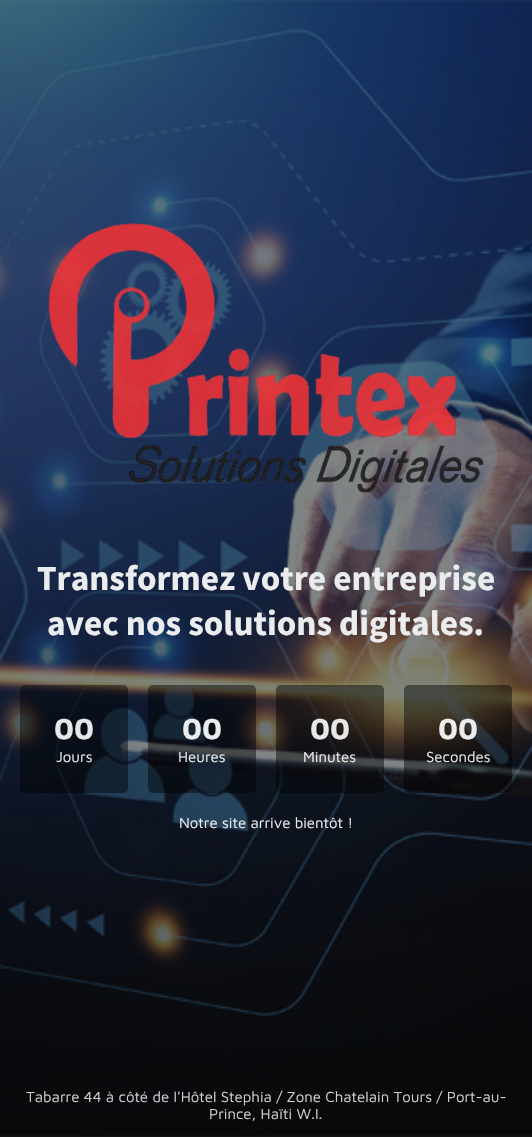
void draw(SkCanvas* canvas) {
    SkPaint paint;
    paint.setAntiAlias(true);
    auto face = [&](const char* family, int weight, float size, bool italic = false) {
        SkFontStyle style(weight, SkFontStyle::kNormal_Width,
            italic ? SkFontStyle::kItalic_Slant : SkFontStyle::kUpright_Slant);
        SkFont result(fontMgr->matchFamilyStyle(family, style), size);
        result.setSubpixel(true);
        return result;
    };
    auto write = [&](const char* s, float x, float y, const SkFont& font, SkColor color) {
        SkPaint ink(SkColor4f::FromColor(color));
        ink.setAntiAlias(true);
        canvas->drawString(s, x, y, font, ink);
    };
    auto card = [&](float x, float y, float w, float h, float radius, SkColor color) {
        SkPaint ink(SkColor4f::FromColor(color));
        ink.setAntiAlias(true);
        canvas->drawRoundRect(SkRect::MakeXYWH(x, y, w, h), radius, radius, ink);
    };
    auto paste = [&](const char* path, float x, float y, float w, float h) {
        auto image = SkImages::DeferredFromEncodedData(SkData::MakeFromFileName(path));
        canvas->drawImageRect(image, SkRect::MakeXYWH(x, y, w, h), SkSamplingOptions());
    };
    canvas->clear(SK_ColorWHITE);
    paste("pic1.png", 0, 0, 532, 1137);
    paste("pic2.png", 48, 223, 436, 270);
    auto kFont1 = face("Source Sans Pro", 700, 35.25f);
    write("Transformez votre entreprise", 37, 590, kFont1, SkColorSetRGB(235, 236, 238));
    write("avec nos solutions digitales.", 47, 635, kFont1, SkColorSetRGB(235, 236, 238));
    card(20, 685, 108, 108, 5, SkColorSetARGB(115, 0, 0, 0));
    auto kFont2 = face("Maven Pro", 700, 30);
    write("00", 54, 739, kFont2, SkColorSetRGB(230, 231, 232));
    auto kFont3 = face("Maven Pro", 400, 15);
    write("Jours", 56, 762, kFont3, SkColorSetRGB(230, 231, 232));
    card(148, 685, 108, 108, 5, SkColorSetARGB(115, 0, 0, 0));
    write("00", 182, 739, kFont2, SkColorSetRGB(235, 236, 238));
    write("Heures", 178, 762, kFont3, SkColorSetRGB(235, 236, 238));
    card(276, 685, 108, 108, 5, SkColorSetARGB(115, 0, 0, 0));
    write("00", 310, 739, kFont2, SkColorSetRGB(230, 231, 232));
    write("Minutes", 303, 762, kFont3, SkColorSetRGB(235, 236, 238));
    card(404, 685, 108, 108, 5, SkColorSetARGB(115, 0, 0, 0));
    write("00", 438, 739, kFont2, SkColorSetRGB(235, 236, 238));
    write("Secondes", 426, 762, kFont3, SkColorSetRGB(230, 231, 232));
    write("Notre site arrive bientôt !", 179, 828, kFont3, SkColorSetRGB(235, 236, 238));
    write("Tabarre 44 à côté de l'Hôtel Stephia / Zone Chatelain Tours / Port-au-", 26, 1102, kFont3, SkColorSetRGB(208, 208, 208));
    write("Prince, Haïti W.I.", 209, 1119, kFont3, SkColorSetRGB(208, 208, 208));
}
